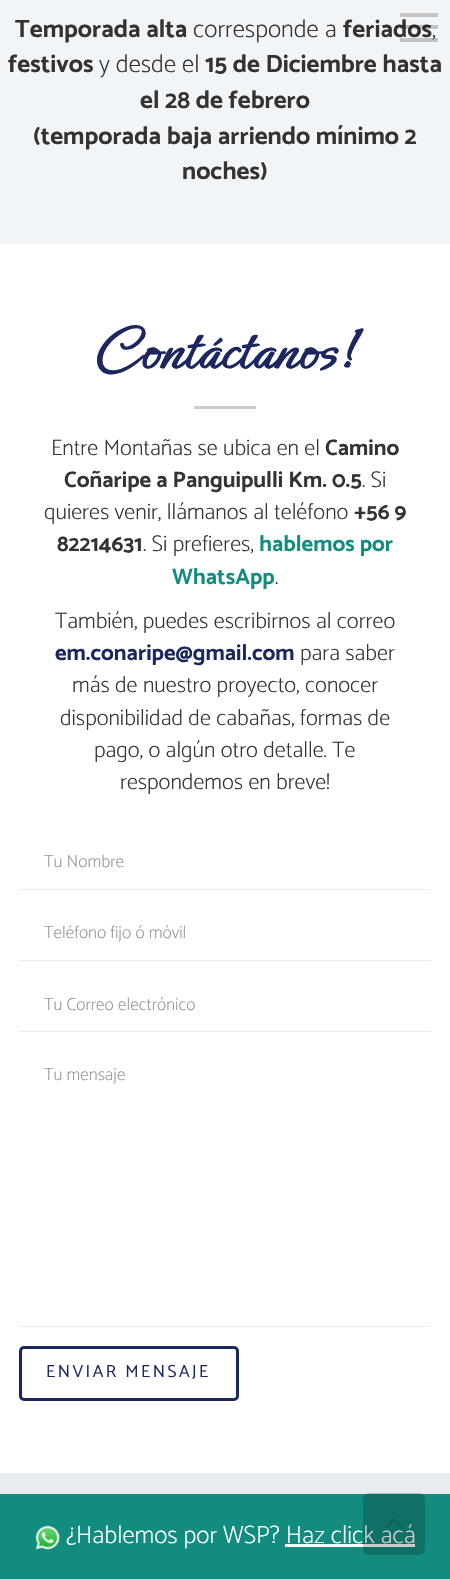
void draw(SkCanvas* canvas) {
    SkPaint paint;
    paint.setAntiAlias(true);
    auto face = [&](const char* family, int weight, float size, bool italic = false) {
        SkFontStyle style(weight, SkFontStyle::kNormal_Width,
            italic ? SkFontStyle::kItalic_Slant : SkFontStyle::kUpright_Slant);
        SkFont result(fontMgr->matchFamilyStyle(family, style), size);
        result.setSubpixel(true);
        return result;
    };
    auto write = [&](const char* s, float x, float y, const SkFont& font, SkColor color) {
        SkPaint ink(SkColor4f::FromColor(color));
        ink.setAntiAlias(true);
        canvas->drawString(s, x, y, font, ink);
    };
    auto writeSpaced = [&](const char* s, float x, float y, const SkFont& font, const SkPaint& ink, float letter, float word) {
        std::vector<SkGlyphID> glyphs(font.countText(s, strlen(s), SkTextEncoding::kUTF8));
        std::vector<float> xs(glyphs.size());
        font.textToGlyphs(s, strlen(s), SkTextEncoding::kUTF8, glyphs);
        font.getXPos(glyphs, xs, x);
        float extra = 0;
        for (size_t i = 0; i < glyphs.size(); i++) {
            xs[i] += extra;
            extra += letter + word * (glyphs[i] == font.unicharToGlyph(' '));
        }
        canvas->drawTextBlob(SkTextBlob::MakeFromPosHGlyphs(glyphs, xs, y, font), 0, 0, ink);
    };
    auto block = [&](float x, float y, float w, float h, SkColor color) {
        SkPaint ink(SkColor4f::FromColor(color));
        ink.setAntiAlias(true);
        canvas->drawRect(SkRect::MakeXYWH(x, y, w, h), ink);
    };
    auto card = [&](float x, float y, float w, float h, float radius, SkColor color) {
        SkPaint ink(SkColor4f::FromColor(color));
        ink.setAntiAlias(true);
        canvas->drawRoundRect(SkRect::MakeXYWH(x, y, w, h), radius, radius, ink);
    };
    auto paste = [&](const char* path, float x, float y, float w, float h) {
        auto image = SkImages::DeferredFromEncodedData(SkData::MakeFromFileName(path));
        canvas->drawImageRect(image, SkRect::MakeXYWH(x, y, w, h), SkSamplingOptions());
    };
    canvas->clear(SK_ColorWHITE);
    block(0, 0, 450, 244, SkColorSetRGB(242, 245, 248));
    auto kFont1 = face("Catamaran", 700, 25);
    write("feriados", 343, 37, kFont1, SkColorSetRGB(51, 51, 51));
    block(400, 25, 38, 4, SkColorSetARGB(51, 0, 0, 0));
    block(400, 13, 38, 4, SkColorSetRGB(194, 196, 198));
    auto kFont2 = face("Catamaran", 200, 25);
    write(",", 432, 37, kFont2, SkColorSetRGB(51, 51, 51));
    block(400, 38, 38, 4, SkColorSetARGB(51, 0, 0, 0));
    write("Temporada alta", 15, 37, kFont1, SkColorSetRGB(51, 51, 51));
    write("corresponde a", 193, 37, kFont2, SkColorSetRGB(51, 51, 51));
    write("festivos", 8, 72, kFont1, SkColorSetRGB(51, 51, 51));
    write("y desde el", 99, 72, kFont2, SkColorSetRGB(51, 51, 51));
    write("15 de Diciembre hasta", 205, 72, kFont1, SkColorSetRGB(51, 51, 51));
    write("el 28 de febrero", 140, 108, kFont1, SkColorSetRGB(51, 51, 51));
    write("(temporada baja arriendo mínimo 2", 33, 144, kFont1, SkColorSetRGB(51, 51, 51));
    write("noches)", 182, 179, kFont1, SkColorSetRGB(51, 51, 51));
    auto kFont3 = face("Ephesis", 700, 62.5f);
    write("Contáctanos!", 93, 368, kFont3, SkColorSetRGB(27, 39, 94));
    block(194, 406, 62, 3, SkColorSetRGB(204, 204, 204));
    auto kFont4 = face("Catamaran", 200, 22.5f);
    write("Entre Montañas se ubica en el", 51, 455, kFont4, SkColorSetRGB(51, 51, 51));
    auto kFont5 = face("Catamaran", 700, 22.5f);
    write("Camino", 325, 455, kFont5, SkColorSetRGB(51, 51, 51));
    write("Coñaripe a Panguipulli Km. 0.5", 64, 487, kFont5, SkColorSetRGB(51, 51, 51));
    write(". Si", 362, 487, kFont4, SkColorSetRGB(51, 51, 51));
    write("quieres venir, llámanos al teléfono", 44, 519, kFont4, SkColorSetRGB(51, 51, 51));
    write("+56 9", 354, 519, kFont5, SkColorSetRGB(51, 51, 51));
    write("82214631", 57, 551, kFont5, SkColorSetRGB(51, 51, 51));
    write(". Si prefieres,", 143, 551, kFont4, SkColorSetRGB(51, 51, 51));
    write("hablemos por", 259, 551, kFont5, SkColorSetRGB(18, 140, 126));
    write("WhatsApp", 172, 584, kFont5, SkColorSetRGB(18, 140, 126));
    write(".", 275, 584, kFont4, SkColorSetRGB(51, 51, 51));
    write("También, puedes escribirnos al correo", 55, 628, kFont4, SkColorSetRGB(51, 51, 51));
    write("em.conaripe@gmail.com", 55, 660, kFont5, SkColorSetRGB(27, 39, 94));
    write("para saber", 300, 660, kFont4, SkColorSetRGB(51, 51, 51));
    write("más de nuestro proyecto, conocer", 72, 692, kFont4, SkColorSetRGB(51, 51, 51));
    write("disponibilidad de cabañas, formas de", 60, 725, kFont4, SkColorSetRGB(51, 51, 51));
    write("pago, o algún otro detalle. Te", 94, 757, kFont4, SkColorSetRGB(51, 51, 51));
    write("respondemos en breve!", 120, 789, kFont4, SkColorSetRGB(51, 51, 51));
    block(19, 889, 412, 1, SkColorSetRGB(232, 236, 241));
    auto kFont6 = face("Catamaran", 200, 17.5f);
    write("Tu Nombre", 44, 867, kFont6, SkColorSetRGB(153, 153, 153));
    block(19, 960, 412, 1, SkColorSetRGB(232, 236, 241));
    write("Teléfono fijo ó móvil", 44, 938, kFont6, SkColorSetRGB(153, 153, 153));
    block(19, 1031, 412, 1, SkColorSetRGB(232, 236, 241));
    write("Tu Correo electrónico", 44, 1010, kFont6, SkColorSetRGB(153, 153, 153));
    block(19, 1326, 412, 1, SkColorSetRGB(232, 236, 241));
    write("Tu mensaje", 44, 1080, kFont6, SkColorSetRGB(153, 153, 153));
    paint.setStyle(SkPaint::kStroke_Style);
    paint.setStrokeWidth(3);
    paint.setColor(SkColorSetRGB(27, 39, 94));
    canvas->drawRoundRect(SkRect::MakeXYWH(20.5f, 1347.5f, 217, 52), 3.5f, 3.5f, paint);
    auto kFont7 = face("Catamaran", 400, 17.5f);
    paint.setStyle(SkPaint::kFill_Style);
    writeSpaced("ENVIAR MENSAJE", 46, 1377, kFont7, paint, 2.5f, 0);
    block(0, 1473, 450, 21, SkColorSetRGB(232, 236, 241));
    block(0, 1494, 450, 85, SkColorSetRGB(18, 140, 126));
    write("¿Hablemos por WSP? Haz click acá", 66, 1543, kFont2, SK_ColorWHITE);
    block(285, 1544, 130, 3, SK_ColorWHITE);
    card(363, 1493, 62, 62, 6, SkColorSetARGB(51, 0, 0, 0));
    paste("pic1.png", 385, 1519, 18, 9);
    paste("pic2.png", 35, 1525, 25, 25);
}
